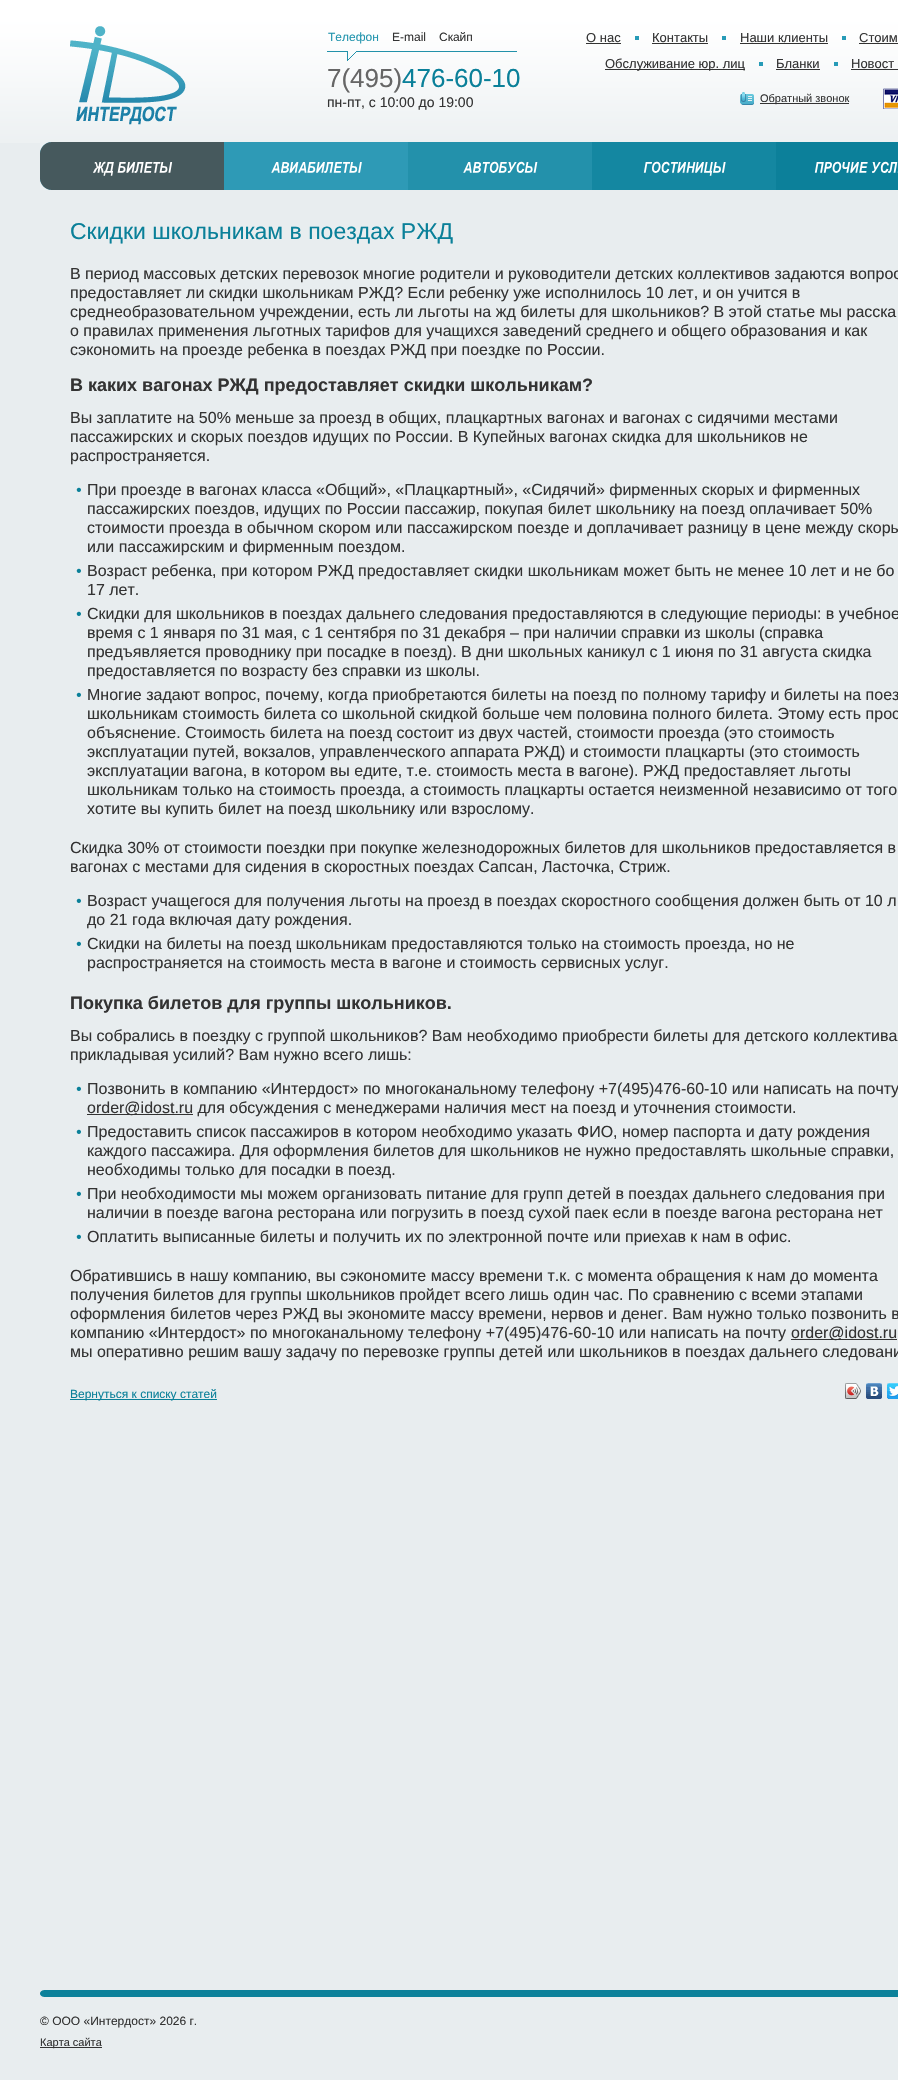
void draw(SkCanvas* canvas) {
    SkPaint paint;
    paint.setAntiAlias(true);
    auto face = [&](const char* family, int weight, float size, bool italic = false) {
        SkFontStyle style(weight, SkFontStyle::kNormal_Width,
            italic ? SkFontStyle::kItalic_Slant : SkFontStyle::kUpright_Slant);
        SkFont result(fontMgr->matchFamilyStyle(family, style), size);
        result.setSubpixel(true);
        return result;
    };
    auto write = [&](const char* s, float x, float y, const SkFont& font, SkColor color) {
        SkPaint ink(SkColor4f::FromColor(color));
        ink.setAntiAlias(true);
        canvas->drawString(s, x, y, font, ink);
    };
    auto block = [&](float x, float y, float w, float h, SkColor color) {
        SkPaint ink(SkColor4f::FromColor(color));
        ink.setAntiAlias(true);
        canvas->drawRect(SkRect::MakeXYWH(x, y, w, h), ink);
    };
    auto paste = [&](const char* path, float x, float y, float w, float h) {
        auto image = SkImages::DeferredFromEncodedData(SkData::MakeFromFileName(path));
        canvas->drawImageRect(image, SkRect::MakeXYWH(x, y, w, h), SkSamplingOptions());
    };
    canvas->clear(SkColorSetRGB(232, 237, 239));
    paste("pic1.png", 0, 0, 898, 143);
    paste("pic2.png", 70, 26, 116, 99);
    block(327, 51, 190, 1, SkColorSetRGB(35, 145, 170));
    auto kFont1 = face("Liberation Sans", 400, 12);
    write("Телефон", 328, 41, kFont1, SkColorSetRGB(33, 148, 173));
    paste("pic3.png", 347, 51, 9, 10);
    write("E-mail", 392, 41, kFont1, SkColorSetRGB(51, 51, 51));
    write("Скайп", 439, 41, kFont1, SkColorSetRGB(51, 51, 51));
    auto kFont2 = face("Liberation Sans", 400, 26);
    write("7(495)", 327, 87, kFont2, SkColorSetRGB(102, 102, 102));
    write("476-60-10", 402, 87, kFont2, SkColorSetRGB(10, 128, 153));
    auto kFont3 = face("Liberation Sans", 400, 14);
    write("пн-пт, с 10:00 до 19:00", 327, 107, kFont3, SkColorSetRGB(51, 51, 51));
    auto kFont4 = face("Liberation Sans", 400, 13);
    write("О нас", 586, 42, kFont4, SkColorSetRGB(51, 51, 51));
    block(586, 43, 35, 1, SkColorSetRGB(51, 51, 51));
    block(635, 36, 4, 4, SkColorSetRGB(39, 155, 183));
    write("Контакты", 652, 42, kFont4, SkColorSetRGB(51, 51, 51));
    block(652, 43, 56, 1, SkColorSetRGB(51, 51, 51));
    block(722, 36, 4, 4, SkColorSetRGB(39, 155, 183));
    write("Наши клиенты", 740, 42, kFont4, SkColorSetRGB(51, 51, 51));
    block(740, 43, 88, 1, SkColorSetRGB(51, 51, 51));
    block(842, 36, 4, 4, SkColorSetRGB(39, 155, 183));
    write("Стоим", 859, 42, kFont4, SkColorSetRGB(51, 51, 51));
    block(859, 43, 39, 1, SkColorSetRGB(51, 51, 51));
    block(605, 69, 140, 1, SkColorSetRGB(51, 51, 51));
    write("Обслуживание юр. лиц", 605, 68, kFont4, SkColorSetRGB(51, 51, 51));
    block(759, 62, 4, 4, SkColorSetRGB(39, 155, 183));
    write("Бланки", 776, 68, kFont4, SkColorSetRGB(51, 51, 51));
    block(776, 69, 44, 1, SkColorSetRGB(51, 51, 51));
    block(834, 62, 4, 4, SkColorSetRGB(39, 155, 183));
    write("Новост", 851, 68, kFont4, SkColorSetRGB(51, 51, 51));
    block(851, 69, 47, 1, SkColorSetRGB(51, 51, 51));
    paste("pic4.png", 740, 92, 14, 13);
    block(760, 103, 89, 1, SkColorSetRGB(51, 51, 51));
    auto kFont5 = face("Liberation Sans", 400, 11);
    write("Обратный звонок", 760, 102, kFont5, SkColorSetRGB(51, 51, 51));
    paste("pic5.png", 883, 88, 15, 21);
    block(776, 142, 122, 48, SkColorSetRGB(12, 128, 154));
    block(40, 142, 184, 48, SkColorSetRGB(70, 89, 93));
    paste("pic6.png", 40, 142, 11, 11);
    paste("pic7.png", 93, 161, 21, 15);
    paste("pic8.png", 117, 162, 56, 11);
    paste("pic9.png", 40, 179, 11, 11);
    block(224, 142, 184, 48, SkColorSetRGB(46, 154, 182));
    paste("pic10.png", 271, 162, 91, 11);
    block(408, 142, 184, 48, SkColorSetRGB(35, 145, 171));
    paste("pic11.png", 463, 161, 75, 12);
    block(592, 142, 184, 48, SkColorSetRGB(20, 135, 161));
    paste("pic12.png", 643, 161, 83, 15);
    paste("pic13.png", 814, 161, 54, 12);
    paste("pic14.png", 872, 161, 26, 12);
    auto kFont6 = face("Liberation Sans", 400, 23);
    write("Скидки школьникам в поездах РЖД", 70, 239, kFont6, SkColorSetRGB(10, 128, 153));
    auto kFont7 = face("Liberation Sans", 400, 16);
    write("В период массовых детских перевозок многие родители и руководители детских коллективов задаются вопрос", 70, 279, kFont7, SkColorSetRGB(51, 51, 51));
    write("предоставляет ли скидки школьникам РЖД? Если ребенку уже исполнилось 10 лет, и он учится в", 70, 298, kFont7, SkColorSetRGB(51, 51, 51));
    write("среднеобразовательном учреждении, есть ли льготы на жд билеты для школьников? В этой статье мы расска", 70, 317, kFont7, SkColorSetRGB(51, 51, 51));
    write("о правилах применения льготных тарифов для учащихся заведений среднего и общего образования и как", 70, 336, kFont7, SkColorSetRGB(51, 51, 51));
    write("сэкономить на проезде ребенка в поездах РЖД при поездке по России.", 70, 355, kFont7, SkColorSetRGB(51, 51, 51));
    auto kFont8 = face("Liberation Sans", 700, 18);
    write("В каких вагонах РЖД предоставляет скидки школьникам?", 70, 391, kFont8, SkColorSetRGB(51, 51, 51));
    write("Вы заплатите на 50% меньше за проезд в общих, плацкартных вагонах и вагонах с сидячими местами", 70, 423, kFont7, SkColorSetRGB(51, 51, 51));
    write("пассажирских и скорых поездов идущих по России. В Купейных вагонах скидка для школьников не", 70, 442, kFont7, SkColorSetRGB(51, 51, 51));
    write("распространяется.", 70, 461, kFont7, SkColorSetRGB(51, 51, 51));
    paste("pic15.png", 76, 487, 5, 5);
    write("При проезде в вагонах класса «Общий», «Плацкартный», «Сидячий» фирменных скорых и фирменных", 87, 495, kFont7, SkColorSetRGB(51, 51, 51));
    write("пассажирских поездов, идущих по России пассажир, покупая билет школьнику на поезд оплачивает 50%", 87, 514, kFont7, SkColorSetRGB(51, 51, 51));
    write("стоимости проезда в обычном скором или пассажирском поезде и доплачивает разницу в цене между скоры", 87, 533, kFont7, SkColorSetRGB(51, 51, 51));
    write("или пассажирским и фирменным поездом.", 87, 552, kFont7, SkColorSetRGB(51, 51, 51));
    paste("pic15.png", 76, 568, 5, 5);
    write("Возраст ребенка, при котором РЖД предоставляет скидки школьникам может быть не менее 10 лет и не бо", 87, 576, kFont7, SkColorSetRGB(51, 51, 51));
    write("17 лет.", 87, 595, kFont7, SkColorSetRGB(51, 51, 51));
    paste("pic15.png", 76, 611, 5, 5);
    write("Скидки для школьников в поездах дальнего следования предоставляются в следующие периоды: в учебное", 87, 619, kFont7, SkColorSetRGB(51, 51, 51));
    write("время с 1 января по 31 мая, с 1 сентября по 31 декабря – при наличии справки из школы (справка", 87, 638, kFont7, SkColorSetRGB(51, 51, 51));
    write("предъявляется проводнику при посадке в поезд). В дни школьных каникул с 1 июня по 31 августа скидка", 87, 657, kFont7, SkColorSetRGB(51, 51, 51));
    write("предоставляется по возрасту без справки из школы.", 87, 676, kFont7, SkColorSetRGB(51, 51, 51));
    paste("pic15.png", 76, 692, 5, 5);
    write("Многие задают вопрос, почему, когда приобретаются билеты на поезд по полному тарифу и билеты на поез", 87, 700, kFont7, SkColorSetRGB(51, 51, 51));
    write("школьникам стоимость билета со школьной скидкой больше чем половина полного билета. Этому есть прос", 87, 719, kFont7, SkColorSetRGB(51, 51, 51));
    write("объяснение. Стоимость билета на поезд состоит из двух частей, стоимости проезда (это стоимость", 87, 738, kFont7, SkColorSetRGB(51, 51, 51));
    write("эксплуатации путей, вокзалов, управленческого аппарата РЖД) и стоимости плацкарты (это стоимость", 87, 757, kFont7, SkColorSetRGB(51, 51, 51));
    write("эксплуатации вагона, в котором вы едите, т.е. стоимость места в вагоне). РЖД предоставляет льготы", 87, 776, kFont7, SkColorSetRGB(51, 51, 51));
    write("школьникам только на стоимость проезда, а стоимость плацкарты остается неизменной независимо от того", 87, 795, kFont7, SkColorSetRGB(51, 51, 51));
    write("хотите вы купить билет на поезд школьнику или взрослому.", 87, 814, kFont7, SkColorSetRGB(51, 51, 51));
    write("Скидка 30% от стоимости поездки при покупке железнодорожных билетов для школьников предоставляется в", 70, 853, kFont7, SkColorSetRGB(51, 51, 51));
    write("вагонах с местами для сидения в скоростных поездах Сапсан, Ласточка, Стриж.", 70, 872, kFont7, SkColorSetRGB(51, 51, 51));
    paste("pic15.png", 76, 898, 5, 5);
    write("Возраст учащегося для получения льготы на проезд в поездах скоростного сообщения должен быть от 10 л", 87, 906, kFont7, SkColorSetRGB(51, 51, 51));
    write("до 21 года включая дату рождения.", 87, 925, kFont7, SkColorSetRGB(51, 51, 51));
    paste("pic15.png", 76, 941, 5, 5);
    write("Скидки на билеты на поезд школьникам предоставляются только на стоимость проезда, но не", 87, 949, kFont7, SkColorSetRGB(51, 51, 51));
    write("распространяется на стоимость места в вагоне и стоимость сервисных услуг.", 87, 968, kFont7, SkColorSetRGB(51, 51, 51));
    write("Покупка билетов для группы школьников.", 70, 1009, kFont8, SkColorSetRGB(51, 51, 51));
    write("Вы собрались в поездку с группой школьников? Вам необходимо приобрести билеты для детского коллектива", 70, 1041, kFont7, SkColorSetRGB(51, 51, 51));
    write("прикладывая усилий? Вам нужно всего лишь:", 70, 1060, kFont7, SkColorSetRGB(51, 51, 51));
    paste("pic15.png", 76, 1086, 5, 5);
    write("Позвонить в компанию «Интердост» по многоканальному телефону +7(495)476-60-10 или написать на почту", 87, 1094, kFont7, SkColorSetRGB(51, 51, 51));
    block(87, 1114, 106, 1, SkColorSetRGB(51, 51, 51));
    write("order@idost.ru для обсуждения с менеджерами наличия мест на поезд и уточнения стоимости.", 87, 1113, kFont7, SkColorSetRGB(51, 51, 51));
    paste("pic15.png", 76, 1129, 5, 5);
    write("Предоставить список пассажиров в котором необходимо указать ФИО, номер паспорта и дату рождения", 87, 1137, kFont7, SkColorSetRGB(51, 51, 51));
    write("каждого пассажира. Для оформления билетов для школьников не нужно предоставлять школьные справки,", 87, 1156, kFont7, SkColorSetRGB(51, 51, 51));
    write("необходимы только для посадки в поезд.", 87, 1175, kFont7, SkColorSetRGB(51, 51, 51));
    paste("pic15.png", 76, 1191, 5, 5);
    write("При необходимости мы можем организовать питание для групп детей в поездах дальнего следования при", 87, 1199, kFont7, SkColorSetRGB(51, 51, 51));
    write("наличии в поезде вагона ресторана или погрузить в поезд сухой паек если в поезде вагона ресторана нет", 87, 1218, kFont7, SkColorSetRGB(51, 51, 51));
    paste("pic15.png", 76, 1234, 5, 5);
    write("Оплатить выписанные билеты и получить их по электронной почте или приехав к нам в офис.", 87, 1242, kFont7, SkColorSetRGB(51, 51, 51));
    write("Обратившись в нашу компанию, вы сэкономите массу времени т.к. с момента обращения к нам до момента", 70, 1281, kFont7, SkColorSetRGB(51, 51, 51));
    write("получения билетов для группы школьников пройдет всего лишь один час. По сравнению с всеми этапами", 70, 1300, kFont7, SkColorSetRGB(51, 51, 51));
    write("оформления билетов через РЖД вы экономите массу времени, нервов и денег. Вам нужно только позвонить в", 70, 1319, kFont7, SkColorSetRGB(51, 51, 51));
    write("компанию «Интердост» по многоканальному телефону +7(495)476-60-10 или написать на почту", 70, 1338, kFont7, SkColorSetRGB(51, 51, 51));
    block(791, 1339, 106, 1, SkColorSetRGB(51, 51, 51));
    write("order@idost.ru", 791, 1338, kFont7, SkColorSetRGB(51, 51, 51));
    write("мы оперативно решим вашу задачу по перевозке группы детей или школьников в поездах дальнего следовани", 70, 1357, kFont7, SkColorSetRGB(51, 51, 51));
    paste("pic16.png", 845, 1383, 16, 16);
    paste("pic17.png", 845, 1383, 16, 16);
    paste("pic18.png", 866, 1383, 16, 16);
    paste("pic19.png", 887, 1383, 11, 16);
    block(70, 1399, 147, 1, SkColorSetRGB(10, 128, 153));
    write("Вернуться к списку статей", 70, 1398, kFont1, SkColorSetRGB(10, 128, 153));
    block(40, 1990, 858, 7, SkColorSetRGB(12, 129, 154));
    paste("pic20.png", 40, 1990, 4, 7);
    write("© ООО «Интердост» 2026 г.", 40, 2025, kFont1, SkColorSetRGB(51, 51, 51));
    block(40, 2047, 62, 1, SkColorSetRGB(51, 51, 51));
    write("Карта сайта", 40, 2046, kFont5, SkColorSetRGB(51, 51, 51));
}
